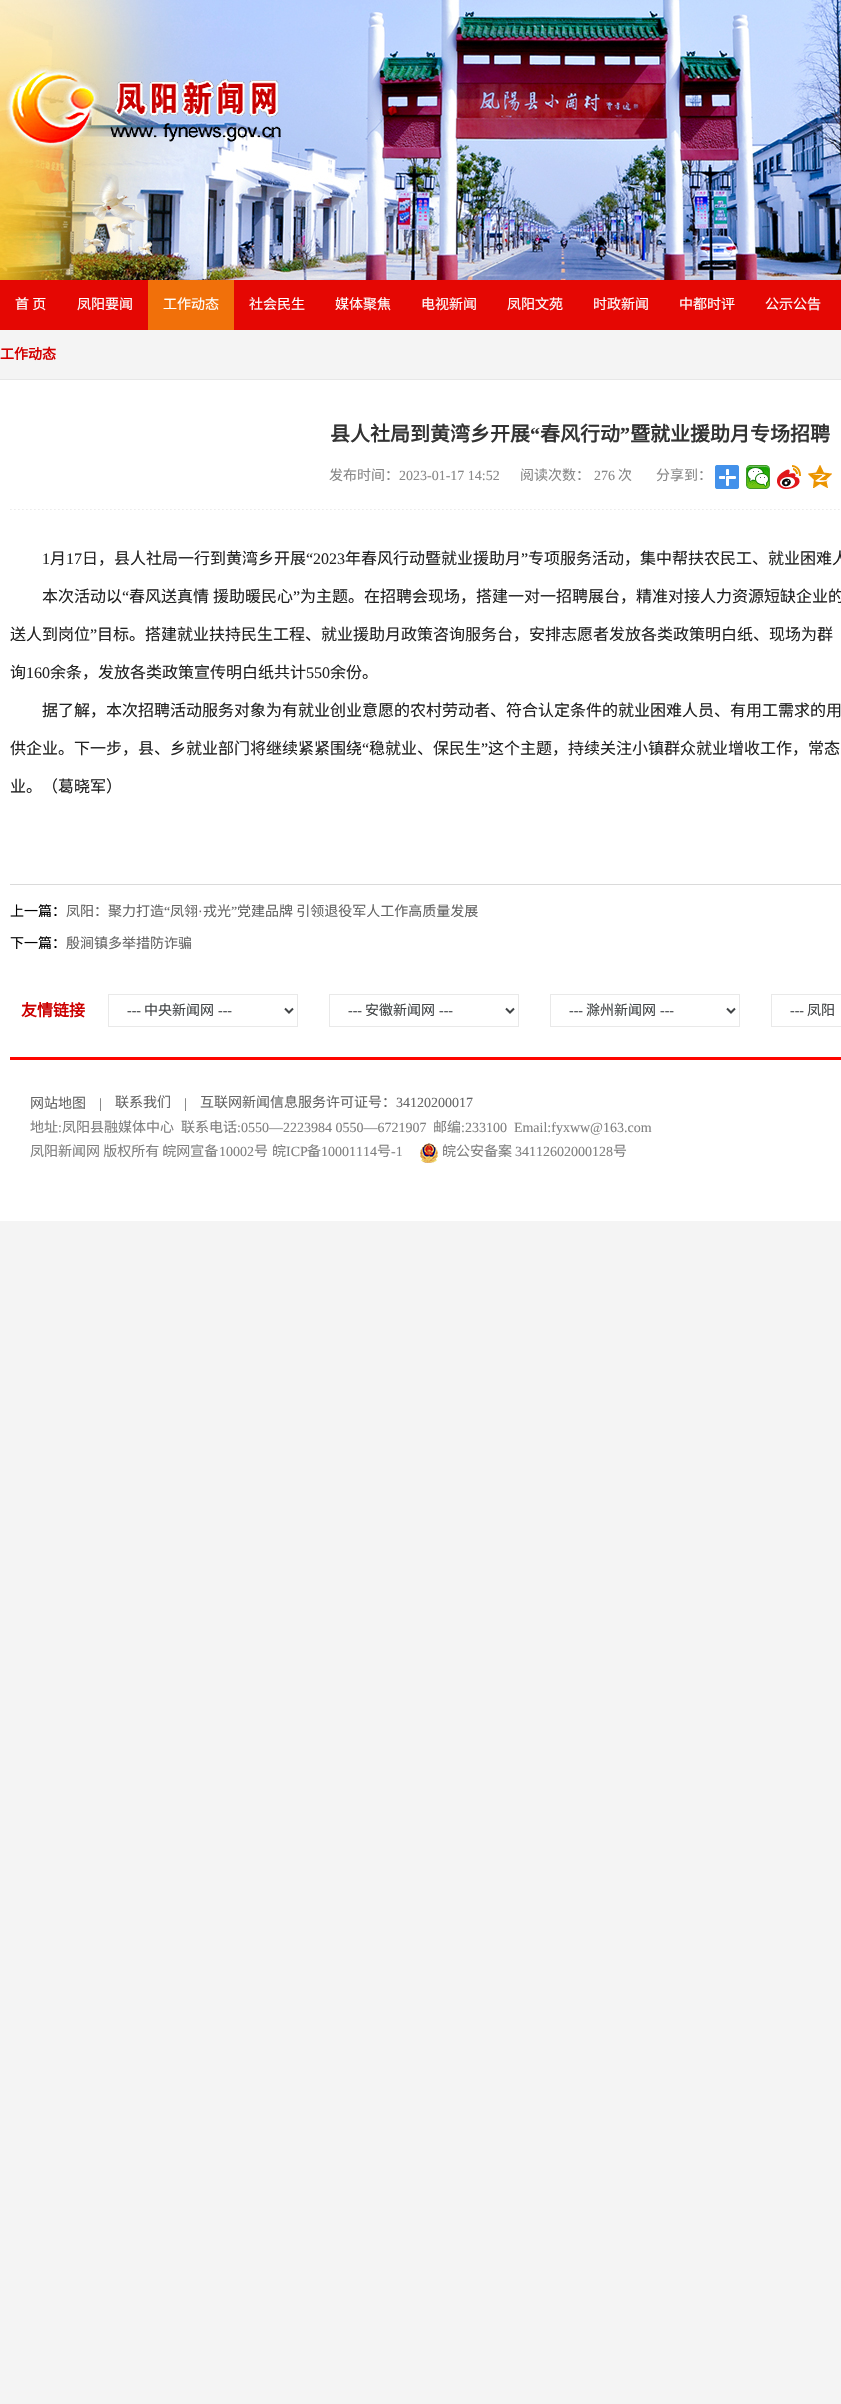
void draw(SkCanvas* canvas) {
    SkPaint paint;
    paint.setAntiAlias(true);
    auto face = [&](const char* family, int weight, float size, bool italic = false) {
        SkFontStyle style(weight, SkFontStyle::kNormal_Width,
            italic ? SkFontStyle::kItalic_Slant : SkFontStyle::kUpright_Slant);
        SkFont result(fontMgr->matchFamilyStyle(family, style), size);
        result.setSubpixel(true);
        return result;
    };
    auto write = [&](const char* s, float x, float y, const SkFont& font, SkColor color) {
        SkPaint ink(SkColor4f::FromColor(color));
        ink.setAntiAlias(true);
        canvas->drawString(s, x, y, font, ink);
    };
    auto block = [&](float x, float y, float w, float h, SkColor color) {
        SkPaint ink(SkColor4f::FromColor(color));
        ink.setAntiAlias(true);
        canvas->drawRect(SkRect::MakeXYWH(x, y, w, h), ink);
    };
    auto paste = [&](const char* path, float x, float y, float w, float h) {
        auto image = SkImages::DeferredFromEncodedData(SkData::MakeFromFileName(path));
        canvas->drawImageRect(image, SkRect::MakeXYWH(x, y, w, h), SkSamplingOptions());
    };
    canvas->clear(SkColorSetRGB(244, 244, 244));
    paste("pic1.png", 0, 0, 841, 280);
    paste("pic2.png", 5, 65, 276, 85);
    block(0, 280, 841, 50, SkColorSetRGB(229, 7, 3));
    auto kFont1 = face("Noto Sans CJK SC", 400, 14);
    write("首 页", 15, 309, kFont1, SK_ColorWHITE);
    write("凤阳要闻", 77, 309, kFont1, SK_ColorWHITE);
    block(148, 280, 86, 50, SkColorSetRGB(241, 112, 10));
    write("工作动态", 163, 309, kFont1, SK_ColorWHITE);
    write("社会民生", 249, 309, kFont1, SK_ColorWHITE);
    write("媒体聚焦", 335, 309, kFont1, SK_ColorWHITE);
    write("电视新闻", 421, 309, kFont1, SK_ColorWHITE);
    write("凤阳文苑", 507, 309, kFont1, SK_ColorWHITE);
    write("时政新闻", 593, 309, kFont1, SK_ColorWHITE);
    write("中都时评", 679, 309, kFont1, SK_ColorWHITE);
    write("公示公告", 765, 309, kFont1, SK_ColorWHITE);
    block(0, 379, 841, 1, SkColorSetRGB(231, 231, 231));
    auto kFont2 = face("Noto Sans CJK SC", 700, 14);
    write("工作动态", 0, 359, kFont2, SkColorSetRGB(211, 0, 0));
    block(0, 380, 841, 841, SK_ColorWHITE);
    paste("pic3.png", 10, 509, 830, 1);
    auto kFont3 = face("Noto Sans CJK SC", 700, 20);
    write("县人社局到黄湾乡开展", 330, 441, kFont3, SkColorSetRGB(51, 51, 51));
    auto kFont4 = face("Liberation Serif", 700, 20);
    write("“", 530, 441, kFont4, SkColorSetRGB(51, 51, 51));
    write("春风行动", 540, 441, kFont3, SkColorSetRGB(51, 51, 51));
    write("”", 620, 441, kFont4, SkColorSetRGB(51, 51, 51));
    write("暨就业援助月专场招聘", 630, 441, kFont3, SkColorSetRGB(51, 51, 51));
    write("发布时间：", 329, 480, kFont1, SkColorSetRGB(136, 136, 136));
    auto kFont5 = face("Liberation Serif", 400, 14);
    write("2023-01-17 14:52", 399, 480, kFont5, SkColorSetRGB(136, 136, 136));
    write("阅读次数：", 520, 480, kFont1, SkColorSetRGB(136, 136, 136));
    write("276", 594, 480, kFont5, SkColorSetRGB(136, 136, 136));
    write("次", 618, 480, kFont1, SkColorSetRGB(136, 136, 136));
    write("分享到：", 656, 480, kFont1, SkColorSetRGB(136, 136, 136));
    paste("pic4.png", 715, 465, 24, 24);
    paste("pic5.png", 746, 465, 24, 24);
    paste("pic6.png", 777, 465, 24, 24);
    paste("pic7.png", 808, 465, 24, 23);
    auto kFont6 = face("Liberation Serif", 400, 16);
    write("1", 42, 564, kFont6, SkColorSetRGB(34, 34, 34));
    auto kFont7 = face("Noto Sans CJK SC", 400, 16);
    write("月", 50, 564, kFont7, SkColorSetRGB(34, 34, 34));
    write("17", 66, 564, kFont6, SkColorSetRGB(34, 34, 34));
    write("日，县人社局一行到黄湾乡开展", 82, 564, kFont7, SkColorSetRGB(34, 34, 34));
    write("“2023", 306, 564, kFont6, SkColorSetRGB(34, 34, 34));
    write("年春风行动暨就业援助月", 345, 564, kFont7, SkColorSetRGB(34, 34, 34));
    write("”", 521, 564, kFont6, SkColorSetRGB(34, 34, 34));
    write("专项服务活动，集中帮扶农民工、就业困难人", 528, 564, kFont7, SkColorSetRGB(34, 34, 34));
    write("本次活动以", 42, 602, kFont7, SkColorSetRGB(34, 34, 34));
    write("“", 122, 602, kFont6, SkColorSetRGB(34, 34, 34));
    write("春风送真情", 129, 602, kFont7, SkColorSetRGB(34, 34, 34));
    write("援助暖民心", 213, 602, kFont7, SkColorSetRGB(34, 34, 34));
    write("”", 293, 602, kFont6, SkColorSetRGB(34, 34, 34));
    write("为主题。在招聘会现场，搭建一对一招聘展台，精准对接人力资源短缺企业的", 300, 602, kFont7, SkColorSetRGB(34, 34, 34));
    write("送人到岗位", 10, 640, kFont7, SkColorSetRGB(34, 34, 34));
    write("”", 90, 640, kFont6, SkColorSetRGB(34, 34, 34));
    write("目标。搭建就业扶持民生工程、就业援助月政策咨询服务台，安排志愿者发放各类政策明白纸、现场为群", 97, 640, kFont7, SkColorSetRGB(34, 34, 34));
    write("询", 10, 678, kFont7, SkColorSetRGB(34, 34, 34));
    write("160", 26, 678, kFont6, SkColorSetRGB(34, 34, 34));
    write("余条，发放各类政策宣传明白纸共计", 50, 678, kFont7, SkColorSetRGB(34, 34, 34));
    write("550", 306, 678, kFont6, SkColorSetRGB(34, 34, 34));
    write("余份。", 330, 678, kFont7, SkColorSetRGB(34, 34, 34));
    write("据了解，本次招聘活动服务对象为有就业创业意愿的农村劳动者、符合认定条件的就业困难人员、有用工需求的用", 42, 716, kFont7, SkColorSetRGB(34, 34, 34));
    write("供企业。下一步，县、乡就业部门将继续紧紧围绕", 10, 754, kFont7, SkColorSetRGB(34, 34, 34));
    write("“", 362, 754, kFont6, SkColorSetRGB(34, 34, 34));
    write("稳就业、保民生", 369, 754, kFont7, SkColorSetRGB(34, 34, 34));
    write("”", 481, 754, kFont6, SkColorSetRGB(34, 34, 34));
    write("这个主题，持续关注小镇群众就业增收工作，常态", 488, 754, kFont7, SkColorSetRGB(34, 34, 34));
    write("业。（葛晓军）", 10, 792, kFont7, SkColorSetRGB(34, 34, 34));
    block(10, 884, 831, 1, SkColorSetRGB(218, 218, 218));
    write("上一篇：", 10, 916, kFont1, SK_ColorBLACK);
    write("凤阳：聚力打造", 66, 916, kFont1, SkColorSetRGB(102, 102, 102));
    write("“", 164, 916, kFont5, SkColorSetRGB(102, 102, 102));
    write("凤翎", 170, 916, kFont1, SkColorSetRGB(102, 102, 102));
    write("戎光", 203, 916, kFont1, SkColorSetRGB(102, 102, 102));
    write("”", 231, 916, kFont5, SkColorSetRGB(102, 102, 102));
    write("党建品牌 引领退役军人工作高质量发展", 237, 916, kFont1, SkColorSetRGB(102, 102, 102));
    write("·", 198, 916, kFont5, SkColorSetRGB(102, 102, 102));
    write("下一篇：", 10, 948, kFont1, SK_ColorBLACK);
    write("殷涧镇多举措防诈骗", 66, 948, kFont1, SkColorSetRGB(102, 102, 102));
    auto kFont8 = face("Noto Sans CJK SC", 700, 16);
    write("友情链接", 21, 1016, kFont8, SkColorSetRGB(204, 0, 0));
    paint.setStyle(SkPaint::kStroke_Style);
    paint.setStrokeWidth(1);
    paint.setColor(SkColorSetRGB(233, 233, 233));
    canvas->drawRect(SkRect::MakeXYWH(108.5f, 994.5f, 189, 32), paint);
    paint.setStrokeWidth(2);
    paint.setColor(SkColorSetRGB(65, 68, 70));
    canvas->drawPath(SkPathBuilder().moveTo(285, 1008.5f).lineTo(289, 1012.5f).lineTo(293, 1008.5f).detach(), paint);
    write("---", 127, 1015, kFont5, SkColorSetRGB(65, 68, 70));
    write("中央新闻网", 144, 1015, kFont1, SkColorSetRGB(65, 68, 70));
    write("---", 218, 1015, kFont5, SkColorSetRGB(65, 68, 70));
    paint.setStrokeWidth(1);
    paint.setColor(SkColorSetRGB(233, 233, 233));
    canvas->drawRect(SkRect::MakeXYWH(329.5f, 994.5f, 189, 32), paint);
    paint.setStrokeWidth(2);
    paint.setColor(SkColorSetRGB(65, 68, 70));
    canvas->drawPath(SkPathBuilder().moveTo(506, 1008.5f).lineTo(510, 1012.5f).lineTo(514, 1008.5f).detach(), paint);
    write("---", 348, 1015, kFont5, SkColorSetRGB(65, 68, 70));
    write("安徽新闻网", 365, 1015, kFont1, SkColorSetRGB(65, 68, 70));
    write("---", 439, 1015, kFont5, SkColorSetRGB(65, 68, 70));
    paint.setStrokeWidth(1);
    paint.setColor(SkColorSetRGB(233, 233, 233));
    canvas->drawRect(SkRect::MakeXYWH(550.5f, 994.5f, 189, 32), paint);
    paint.setStrokeWidth(2);
    paint.setColor(SkColorSetRGB(65, 68, 70));
    canvas->drawPath(SkPathBuilder().moveTo(727, 1008.5f).lineTo(731, 1012.5f).lineTo(735, 1008.5f).detach(), paint);
    write("---", 569, 1015, kFont5, SkColorSetRGB(65, 68, 70));
    write("滁州新闻网", 586, 1015, kFont1, SkColorSetRGB(65, 68, 70));
    write("---", 660, 1015, kFont5, SkColorSetRGB(65, 68, 70));
    paint.setStrokeWidth(1);
    paint.setColor(SkColorSetRGB(233, 233, 233));
    canvas->drawRect(SkRect::MakeXYWH(771.5f, 994.5f, 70, 32), paint);
    write("---", 790, 1015, kFont5, SkColorSetRGB(65, 68, 70));
    write("凤阳", 807, 1015, kFont1, SkColorSetRGB(65, 68, 70));
    block(10, 1057, 831, 3, SkColorSetRGB(255, 5, 0));
    write("网站地图", 30, 1108, kFont1, SkColorSetRGB(102, 102, 102));
    write("|", 99, 1108, kFont5, SkColorSetRGB(102, 102, 102));
    write("联系我们", 115, 1107, kFont1, SkColorSetRGB(102, 102, 102));
    write("|", 184, 1108, kFont5, SkColorSetRGB(102, 102, 102));
    write("互联网新闻信息服务许可证号：", 200, 1107, kFont1, SkColorSetRGB(102, 102, 102));
    write("34120200017", 396, 1107, kFont5, SkColorSetRGB(102, 102, 102));
    write("地址", 30, 1132, kFont1, SkColorSetRGB(128, 128, 128));
    write(":", 58, 1132, kFont5, SkColorSetRGB(128, 128, 128));
    write("凤阳县融媒体中心", 62, 1132, kFont1, SkColorSetRGB(128, 128, 128));
    write("联系电话", 181, 1132, kFont1, SkColorSetRGB(128, 128, 128));
    write(":0550—2223984 0550—6721907", 237, 1132, kFont5, SkColorSetRGB(128, 128, 128));
    write("邮编", 433, 1132, kFont1, SkColorSetRGB(128, 128, 128));
    write(":233100  Email:fyxww@163.com", 461, 1132, kFont5, SkColorSetRGB(128, 128, 128));
    write("凤阳新闻网 版权所有 皖网宣备", 30, 1156, kFont1, SkColorSetRGB(128, 128, 128));
    write("10002", 219, 1156, kFont5, SkColorSetRGB(128, 128, 128));
    write("号", 254, 1156, kFont1, SkColorSetRGB(128, 128, 128));
    write("皖", 272, 1156, kFont1, SkColorSetRGB(128, 128, 128));
    write("ICP", 286, 1156, kFont5, SkColorSetRGB(128, 128, 128));
    write("备", 307, 1156, kFont1, SkColorSetRGB(128, 128, 128));
    write("10001114", 321, 1156, kFont5, SkColorSetRGB(128, 128, 128));
    write("号", 377, 1156, kFont1, SkColorSetRGB(128, 128, 128));
    write("-1", 391, 1156, kFont5, SkColorSetRGB(128, 128, 128));
    paste("pic8.png", 420, 1143, 18, 20);
    write("皖公安备案", 442, 1156, kFont1, SkColorSetRGB(128, 128, 128));
    write("34112602000128", 515, 1156, kFont5, SkColorSetRGB(128, 128, 128));
    write("号", 613, 1156, kFont1, SkColorSetRGB(128, 128, 128));
}
